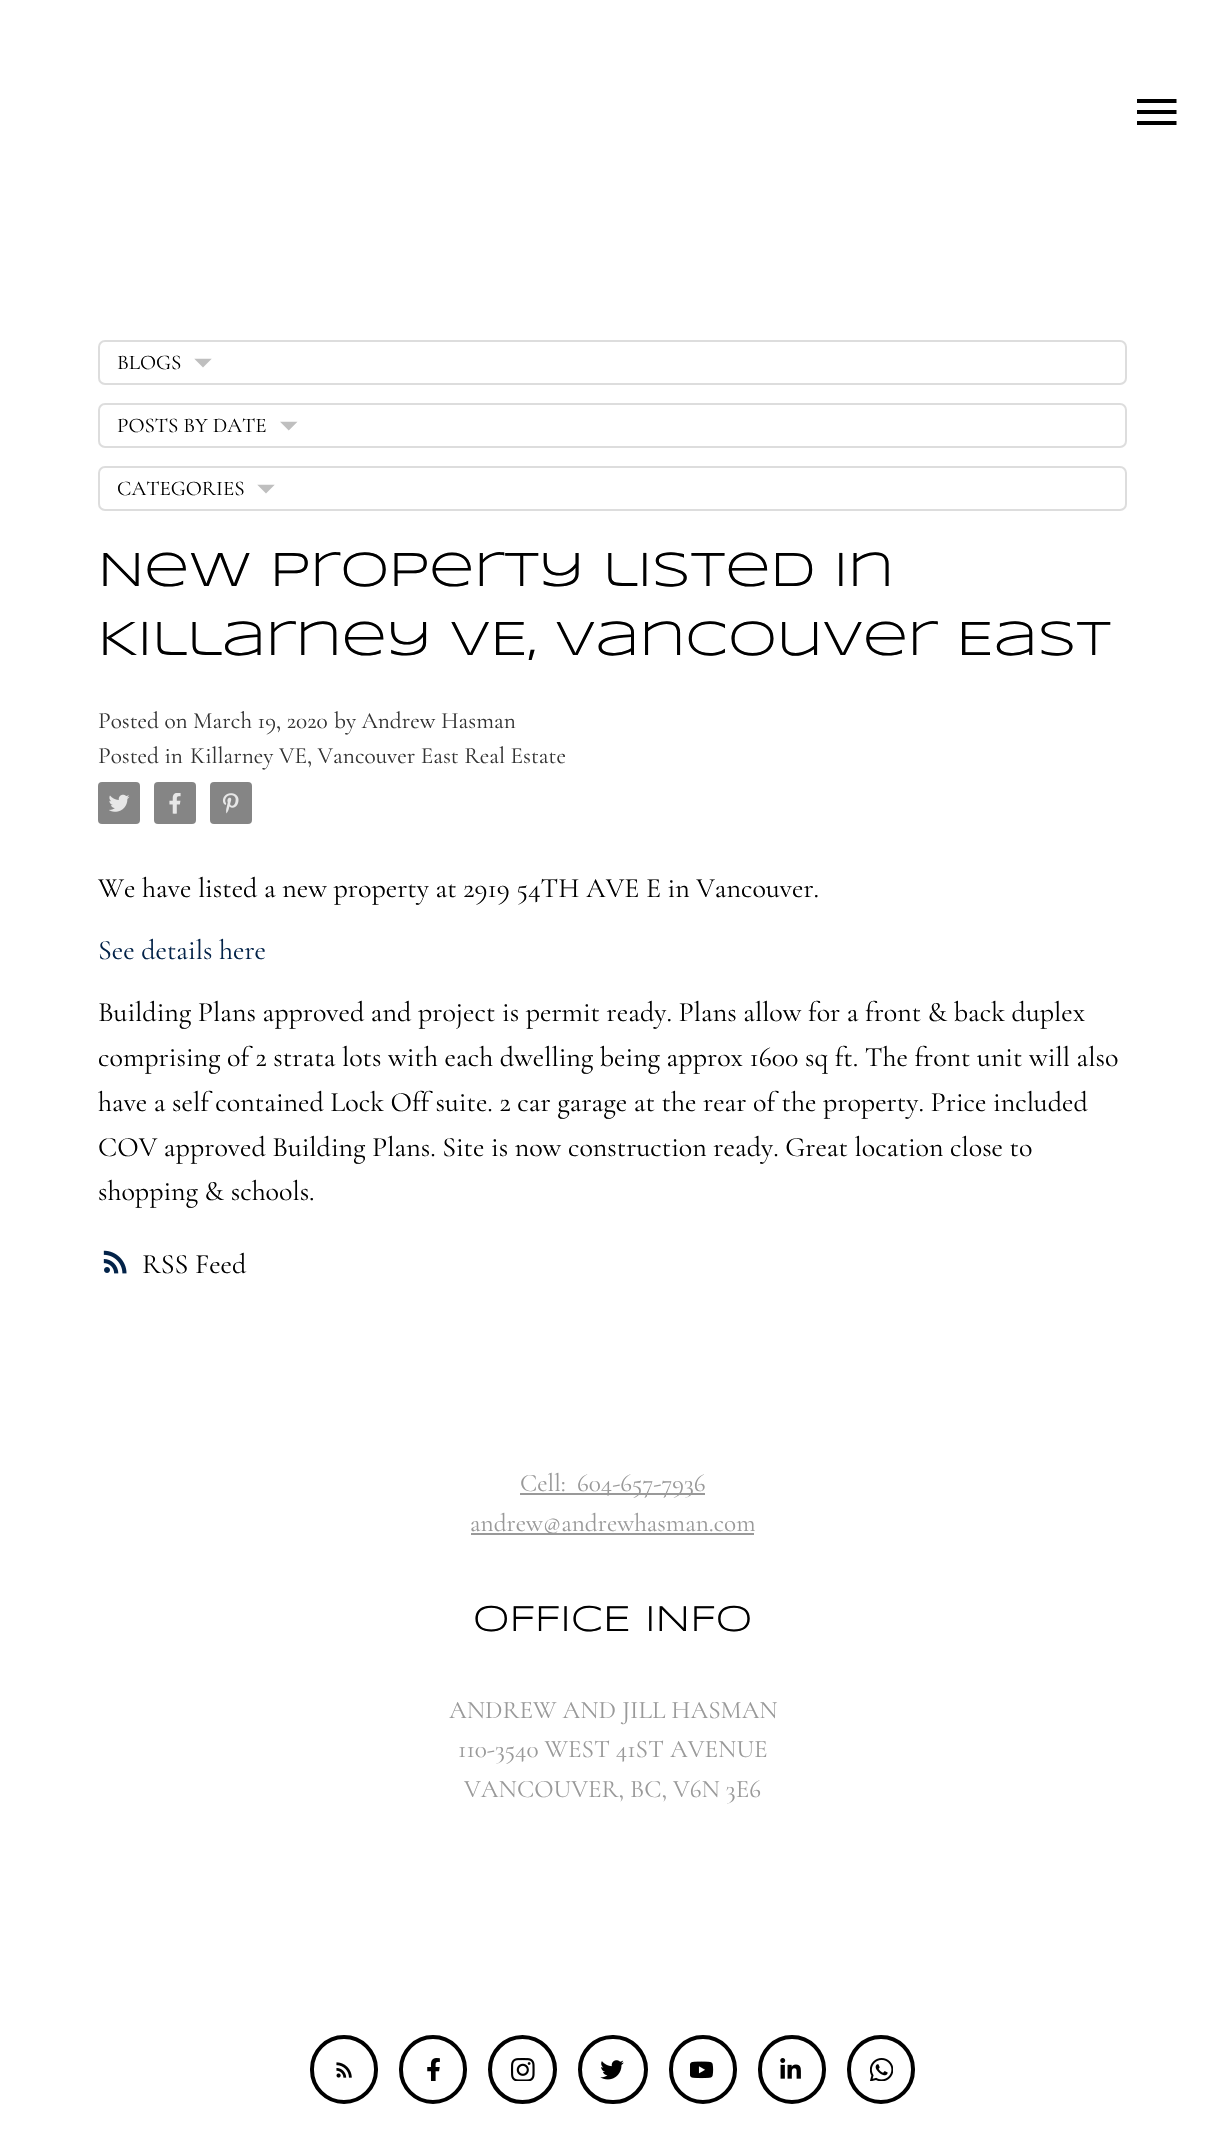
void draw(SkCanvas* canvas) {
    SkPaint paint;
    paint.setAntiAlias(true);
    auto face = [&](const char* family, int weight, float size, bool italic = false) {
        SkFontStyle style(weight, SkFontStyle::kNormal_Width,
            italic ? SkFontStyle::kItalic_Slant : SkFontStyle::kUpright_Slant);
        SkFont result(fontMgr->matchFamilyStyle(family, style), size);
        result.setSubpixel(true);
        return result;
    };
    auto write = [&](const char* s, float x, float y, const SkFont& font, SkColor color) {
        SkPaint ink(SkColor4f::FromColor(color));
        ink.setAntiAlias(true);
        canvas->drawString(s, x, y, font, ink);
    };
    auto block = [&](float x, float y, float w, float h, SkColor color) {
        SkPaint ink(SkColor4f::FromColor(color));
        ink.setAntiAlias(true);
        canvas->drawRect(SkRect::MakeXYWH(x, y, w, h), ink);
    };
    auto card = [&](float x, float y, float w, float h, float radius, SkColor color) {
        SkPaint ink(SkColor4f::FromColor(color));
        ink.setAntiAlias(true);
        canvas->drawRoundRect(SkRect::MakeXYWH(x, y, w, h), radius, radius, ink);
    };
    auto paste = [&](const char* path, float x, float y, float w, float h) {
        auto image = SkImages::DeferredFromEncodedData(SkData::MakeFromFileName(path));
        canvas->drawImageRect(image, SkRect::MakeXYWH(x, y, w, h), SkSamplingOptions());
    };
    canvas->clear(SK_ColorWHITE);
    paint.setColor(SK_ColorBLACK);
    canvas->drawPath(SkPathBuilder().moveTo(1137, 125).lineTo(1176.5f, 125).lineTo(1176.5f, 121).lineTo(1137, 121).close().moveTo(1137, 114).lineTo(1176.5f, 114).lineTo(1176.5f, 110).lineTo(1137, 110).close().moveTo(1137, 99).lineTo(1137, 103).lineTo(1176.5f, 103).lineTo(1176.5f, 99).close().detach(), paint);
    paint.setStyle(SkPaint::kStroke_Style);
    paint.setStrokeWidth(2);
    paint.setColor(SkColorSetRGB(221, 221, 221));
    canvas->drawRoundRect(SkRect::MakeXYWH(99, 341, 1027, 43), 6, 6, paint);
    auto kFont1 = face("Cormorant Garamond", 400, 21);
    write("BLOGS", 117, 369, kFont1, SK_ColorBLACK);
    paste("pic1.png", 194, 358, 18, 10);
    canvas->drawRoundRect(SkRect::MakeXYWH(99, 404, 1027, 43), 6, 6, paint);
    write("POSTS BY DATE", 117, 432, kFont1, SK_ColorBLACK);
    paste("pic2.png", 280, 421, 18, 10);
    canvas->drawRoundRect(SkRect::MakeXYWH(99, 467, 1027, 43), 6, 6, paint);
    write("CATEGORIES", 117, 495, kFont1, SK_ColorBLACK);
    paste("pic1.png", 257, 484, 18, 10);
    auto kFont2 = face("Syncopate", 400, 49.3f);
    write("New property listed in", 98, 586, kFont2, SK_ColorBLACK);
    write("Killarney VE, Vancouver East", 98, 655, kFont2, SK_ColorBLACK);
    auto kFont3 = face("Cormorant Garamond", 400, 23.3f);
    write("Posted on March 19, 2020", 98, 728, kFont3, SkColorSetRGB(51, 51, 51));
    write("by Andrew Hasman", 334, 728, kFont3, SkColorSetRGB(51, 51, 51));
    write("Posted in", 98, 763, kFont3, SkColorSetRGB(51, 51, 51));
    write("Killarney VE, Vancouver East Real Estate", 190, 763, kFont3, SkColorSetRGB(51, 51, 51));
    card(98, 782, 42, 42, 4, SkColorSetRGB(133, 133, 133));
    paste("pic3.png", 109, 794, 21, 18);
    card(154, 782, 42, 42, 4, SkColorSetRGB(133, 133, 133));
    paste("pic4.png", 169, 793, 12, 21);
    card(210, 782, 42, 42, 4, SkColorSetRGB(133, 133, 133));
    paste("pic5.png", 222, 793, 17, 21);
    auto kFont4 = face("Cormorant Garamond", 400, 28);
    write("We have listed a new property at 2919 54TH AVE E in Vancouver.", 98, 897, kFont4, SK_ColorBLACK);
    write("See details here", 98, 959, kFont4, SkColorSetRGB(3, 35, 73));
    write("Building Plans approved and project is permit ready. Plans allow for a front & back duplex", 98, 1021, kFont4, SK_ColorBLACK);
    write("comprising of 2 strata lots with each dwelling being approx 1600 sq ft. The front unit will also", 98, 1066, kFont4, SK_ColorBLACK);
    write("have a self contained Lock Off suite. 2 car garage at the rear of the property. Price included", 98, 1111, kFont4, SK_ColorBLACK);
    write("COV approved Building Plans. Site is now construction ready. Great location close to", 98, 1156, kFont4, SK_ColorBLACK);
    write("shopping & schools.", 98, 1200, kFont4, SK_ColorBLACK);
    paste("pic6.png", 103, 1250, 24, 24);
    write("RSS Feed", 142, 1273, kFont4, SK_ColorBLACK);
    auto kFont5 = face("Cormorant Garamond", 400, 25.25f);
    write("Cell:", 520, 1491, kFont5, SkColorSetRGB(153, 153, 153));
    block(520, 1493, 185, 2, SkColorSetRGB(153, 153, 153));
    write("604-657-7936", 577, 1491, kFont5, SkColorSetRGB(153, 153, 153));
    block(471, 1533, 283, 2, SkColorSetRGB(153, 153, 153));
    write("andrew@andrewhasman.com", 470, 1531, kFont5, SkColorSetRGB(153, 153, 153));
    auto kFont6 = face("Syncopate", 400, 37);
    write("OFFICE INFO", 473, 1631, kFont6, SK_ColorBLACK);
    write("ANDREW AND JILL HASMAN", 449, 1718, kFont5, SkColorSetRGB(153, 153, 153));
    write("110-3540 WEST 41ST AVENUE", 458, 1757, kFont5, SkColorSetRGB(153, 153, 153));
    write("VANCOUVER, BC, V6N 3E6", 464, 1797, kFont5, SkColorSetRGB(153, 153, 153));
    paint.setStrokeWidth(4);
    paint.setColor(SK_ColorBLACK);
    canvas->drawRoundRect(SkRect::MakeXYWH(312, 2037, 64, 65), 32, 32, paint);
    paste("pic7.png", 336, 2062, 16, 16);
    canvas->drawRoundRect(SkRect::MakeXYWH(401, 2037, 64, 65), 32, 32, paint);
    paste("pic8.png", 427, 2058, 13, 23);
    canvas->drawCircle(522.5f, 2069.5f, 32.5f, paint);
    paste("pic9.png", 511, 2058, 24, 23);
    canvas->drawRoundRect(SkRect::MakeXYWH(580, 2037, 66, 65), 32.5f, 32.5f, paint);
    paste("pic10.png", 600, 2060, 24, 20);
    canvas->drawRoundRect(SkRect::MakeXYWH(671, 2037, 64, 65), 32, 32, paint);
    paste("pic11.png", 690, 2061, 24, 18);
    canvas->drawRoundRect(SkRect::MakeXYWH(760, 2037, 64, 65), 32, 32, paint);
    paste("pic12.png", 780, 2058, 21, 21);
    canvas->drawRoundRect(SkRect::MakeXYWH(849, 2037, 64, 65), 32, 32, paint);
    paste("pic13.png", 870, 2058, 23, 23);
}
